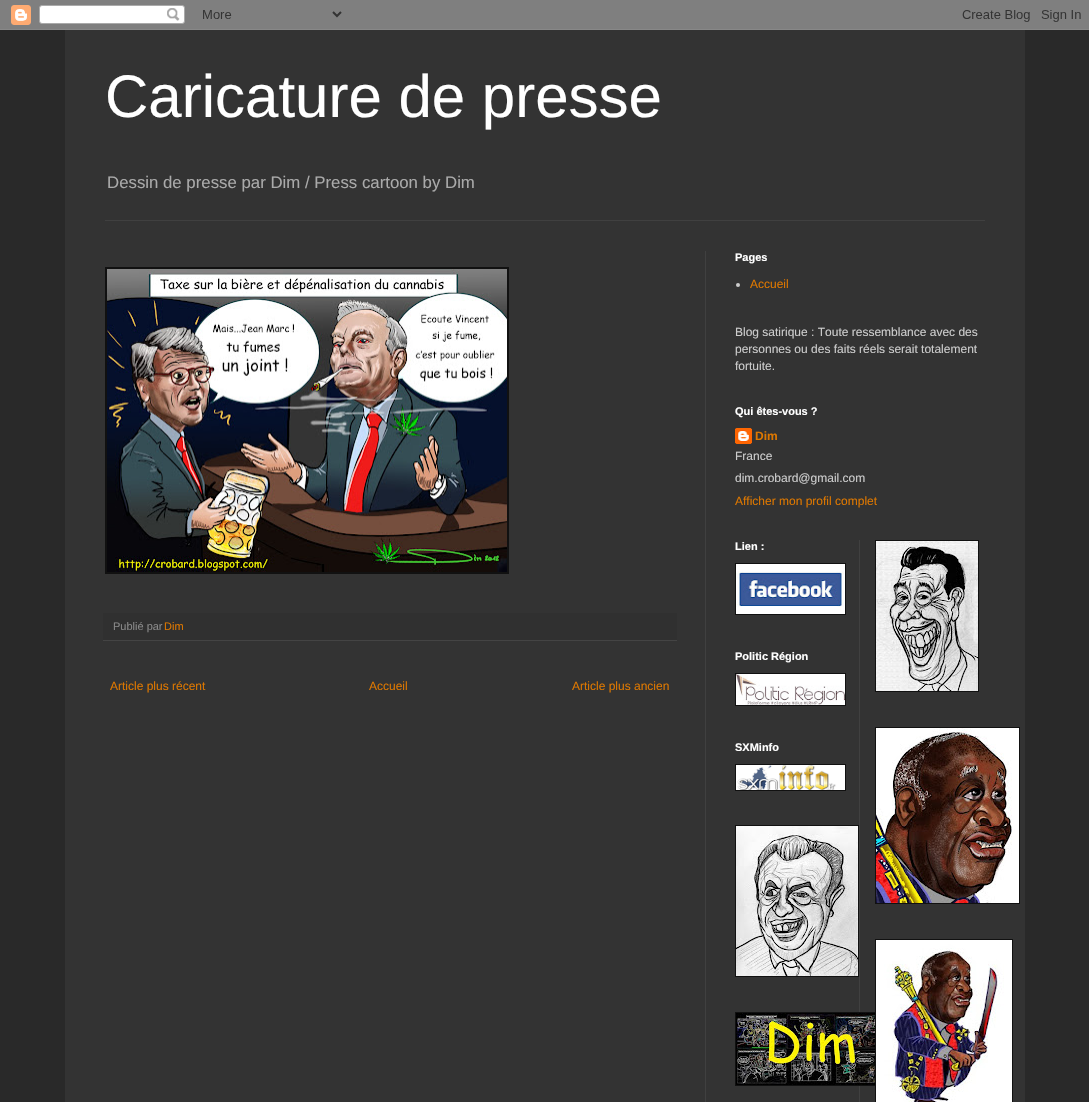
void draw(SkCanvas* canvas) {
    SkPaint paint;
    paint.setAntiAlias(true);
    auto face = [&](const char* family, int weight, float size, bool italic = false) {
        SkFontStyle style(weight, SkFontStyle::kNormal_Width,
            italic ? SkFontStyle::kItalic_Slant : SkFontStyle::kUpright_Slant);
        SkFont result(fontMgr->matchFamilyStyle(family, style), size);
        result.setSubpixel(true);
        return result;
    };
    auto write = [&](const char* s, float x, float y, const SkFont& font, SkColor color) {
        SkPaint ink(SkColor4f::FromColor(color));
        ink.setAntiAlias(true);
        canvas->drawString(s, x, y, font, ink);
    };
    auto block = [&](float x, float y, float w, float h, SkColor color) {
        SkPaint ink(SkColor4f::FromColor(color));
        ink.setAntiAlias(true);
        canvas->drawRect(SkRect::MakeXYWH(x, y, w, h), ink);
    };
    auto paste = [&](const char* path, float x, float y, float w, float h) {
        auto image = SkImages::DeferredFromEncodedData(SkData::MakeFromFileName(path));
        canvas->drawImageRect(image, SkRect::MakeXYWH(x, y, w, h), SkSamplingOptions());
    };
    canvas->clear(SkColorSetRGB(41, 41, 41));
    paste("pic1.png", 0, 0, 1089, 30);
    block(65, 30, 960, 1072, SkColorSetRGB(51, 51, 51));
    auto kFont1 = face("Liberation Sans", 400, 60);
    write("Caricature de presse", 105, 117, kFont1, SK_ColorWHITE);
    auto kFont2 = face("Liberation Sans", 400, 16.8f);
    write("Dessin de presse par Dim / Press cartoon by Dim", 107, 188, kFont2, SkColorSetRGB(170, 170, 170));
    block(105, 220, 880, 1, SkColorSetRGB(64, 64, 64));
    block(705, 251, 1, 851, SkColorSetRGB(64, 64, 64));
    block(105, 267, 404, 307, SkColorSetRGB(17, 17, 17));
    paste("pic2.png", 107, 269, 400, 303);
    block(103, 613, 574, 27, SkColorSetRGB(48, 48, 48));
    block(103, 640, 574, 1, SkColorSetRGB(68, 68, 68));
    auto kFont3 = face("Liberation Sans", 400, 11);
    write("Publié par", 113, 630, kFont3, SkColorSetRGB(136, 136, 136));
    write("Dim", 164, 630, kFont3, SkColorSetRGB(221, 119, 0));
    auto kFont4 = face("Liberation Sans", 400, 12);
    write("Article plus récent", 110, 690, kFont4, SkColorSetRGB(221, 119, 0));
    write("Accueil", 369, 690, kFont4, SkColorSetRGB(221, 119, 0));
    write("Article plus ancien", 572, 690, kFont4, SkColorSetRGB(221, 119, 0));
    auto kFont5 = face("Liberation Sans", 700, 11);
    write("Pages", 735, 261, kFont5, SK_ColorWHITE);
    paint.setColor(SkColorSetRGB(204, 204, 204));
    canvas->drawCircle(738, 285, 2, paint);
    write("Accueil", 750, 288, kFont4, SkColorSetRGB(221, 119, 0));
    write("Blog satirique : Toute ressemblance avec des", 735, 336, kFont4, SkColorSetRGB(204, 204, 204));
    write("personnes ou des faits réels serait totalement", 735, 353, kFont4, SkColorSetRGB(204, 204, 204));
    write("fortuite.", 735, 370, kFont4, SkColorSetRGB(204, 204, 204));
    write("Qui êtes-vous ?", 735, 415, kFont5, SK_ColorWHITE);
    paste("pic3.png", 735, 428, 17, 16);
    auto kFont6 = face("Liberation Sans", 700, 12);
    write("Dim", 755, 440, kFont6, SkColorSetRGB(221, 119, 0));
    write("France", 735, 460, kFont4, SkColorSetRGB(204, 204, 204));
    write("dim.crobard@gmail.com", 735, 482, kFont4, SkColorSetRGB(204, 204, 204));
    write("Afficher mon profil complet", 735, 505, kFont4, SkColorSetRGB(221, 119, 0));
    write("Lien :", 735, 550, kFont5, SK_ColorWHITE);
    block(735, 563, 111, 52, SkColorSetRGB(17, 17, 17));
    paste("pic4.png", 736, 564, 109, 50);
    write("Politic Région", 735, 660, kFont5, SK_ColorWHITE);
    block(735, 673, 111, 33, SkColorSetRGB(17, 17, 17));
    paste("pic5.png", 736, 674, 109, 31);
    write("SXMinfo", 735, 751, kFont5, SK_ColorWHITE);
    block(735, 764, 111, 27, SkColorSetRGB(17, 17, 17));
    paste("pic6.png", 736, 765, 109, 25);
    block(735, 825, 124, 152, SkColorSetRGB(17, 17, 17));
    paste("pic7.png", 736, 826, 122, 150);
    block(859, 540, 1, 562, SkColorSetRGB(64, 64, 64));
    block(735, 1012, 140, 74, SkColorSetRGB(17, 17, 17));
    paste("pic8.png", 736, 1013, 139, 72);
    block(875, 540, 104, 152, SkColorSetRGB(17, 17, 17));
    paste("pic9.png", 876, 541, 102, 150);
    block(875, 727, 145, 177, SkColorSetRGB(17, 17, 17));
    paste("pic10.png", 876, 728, 143, 175);
    block(875, 939, 138, 163, SkColorSetRGB(17, 17, 17));
    paste("pic11.png", 876, 940, 136, 162);
}
